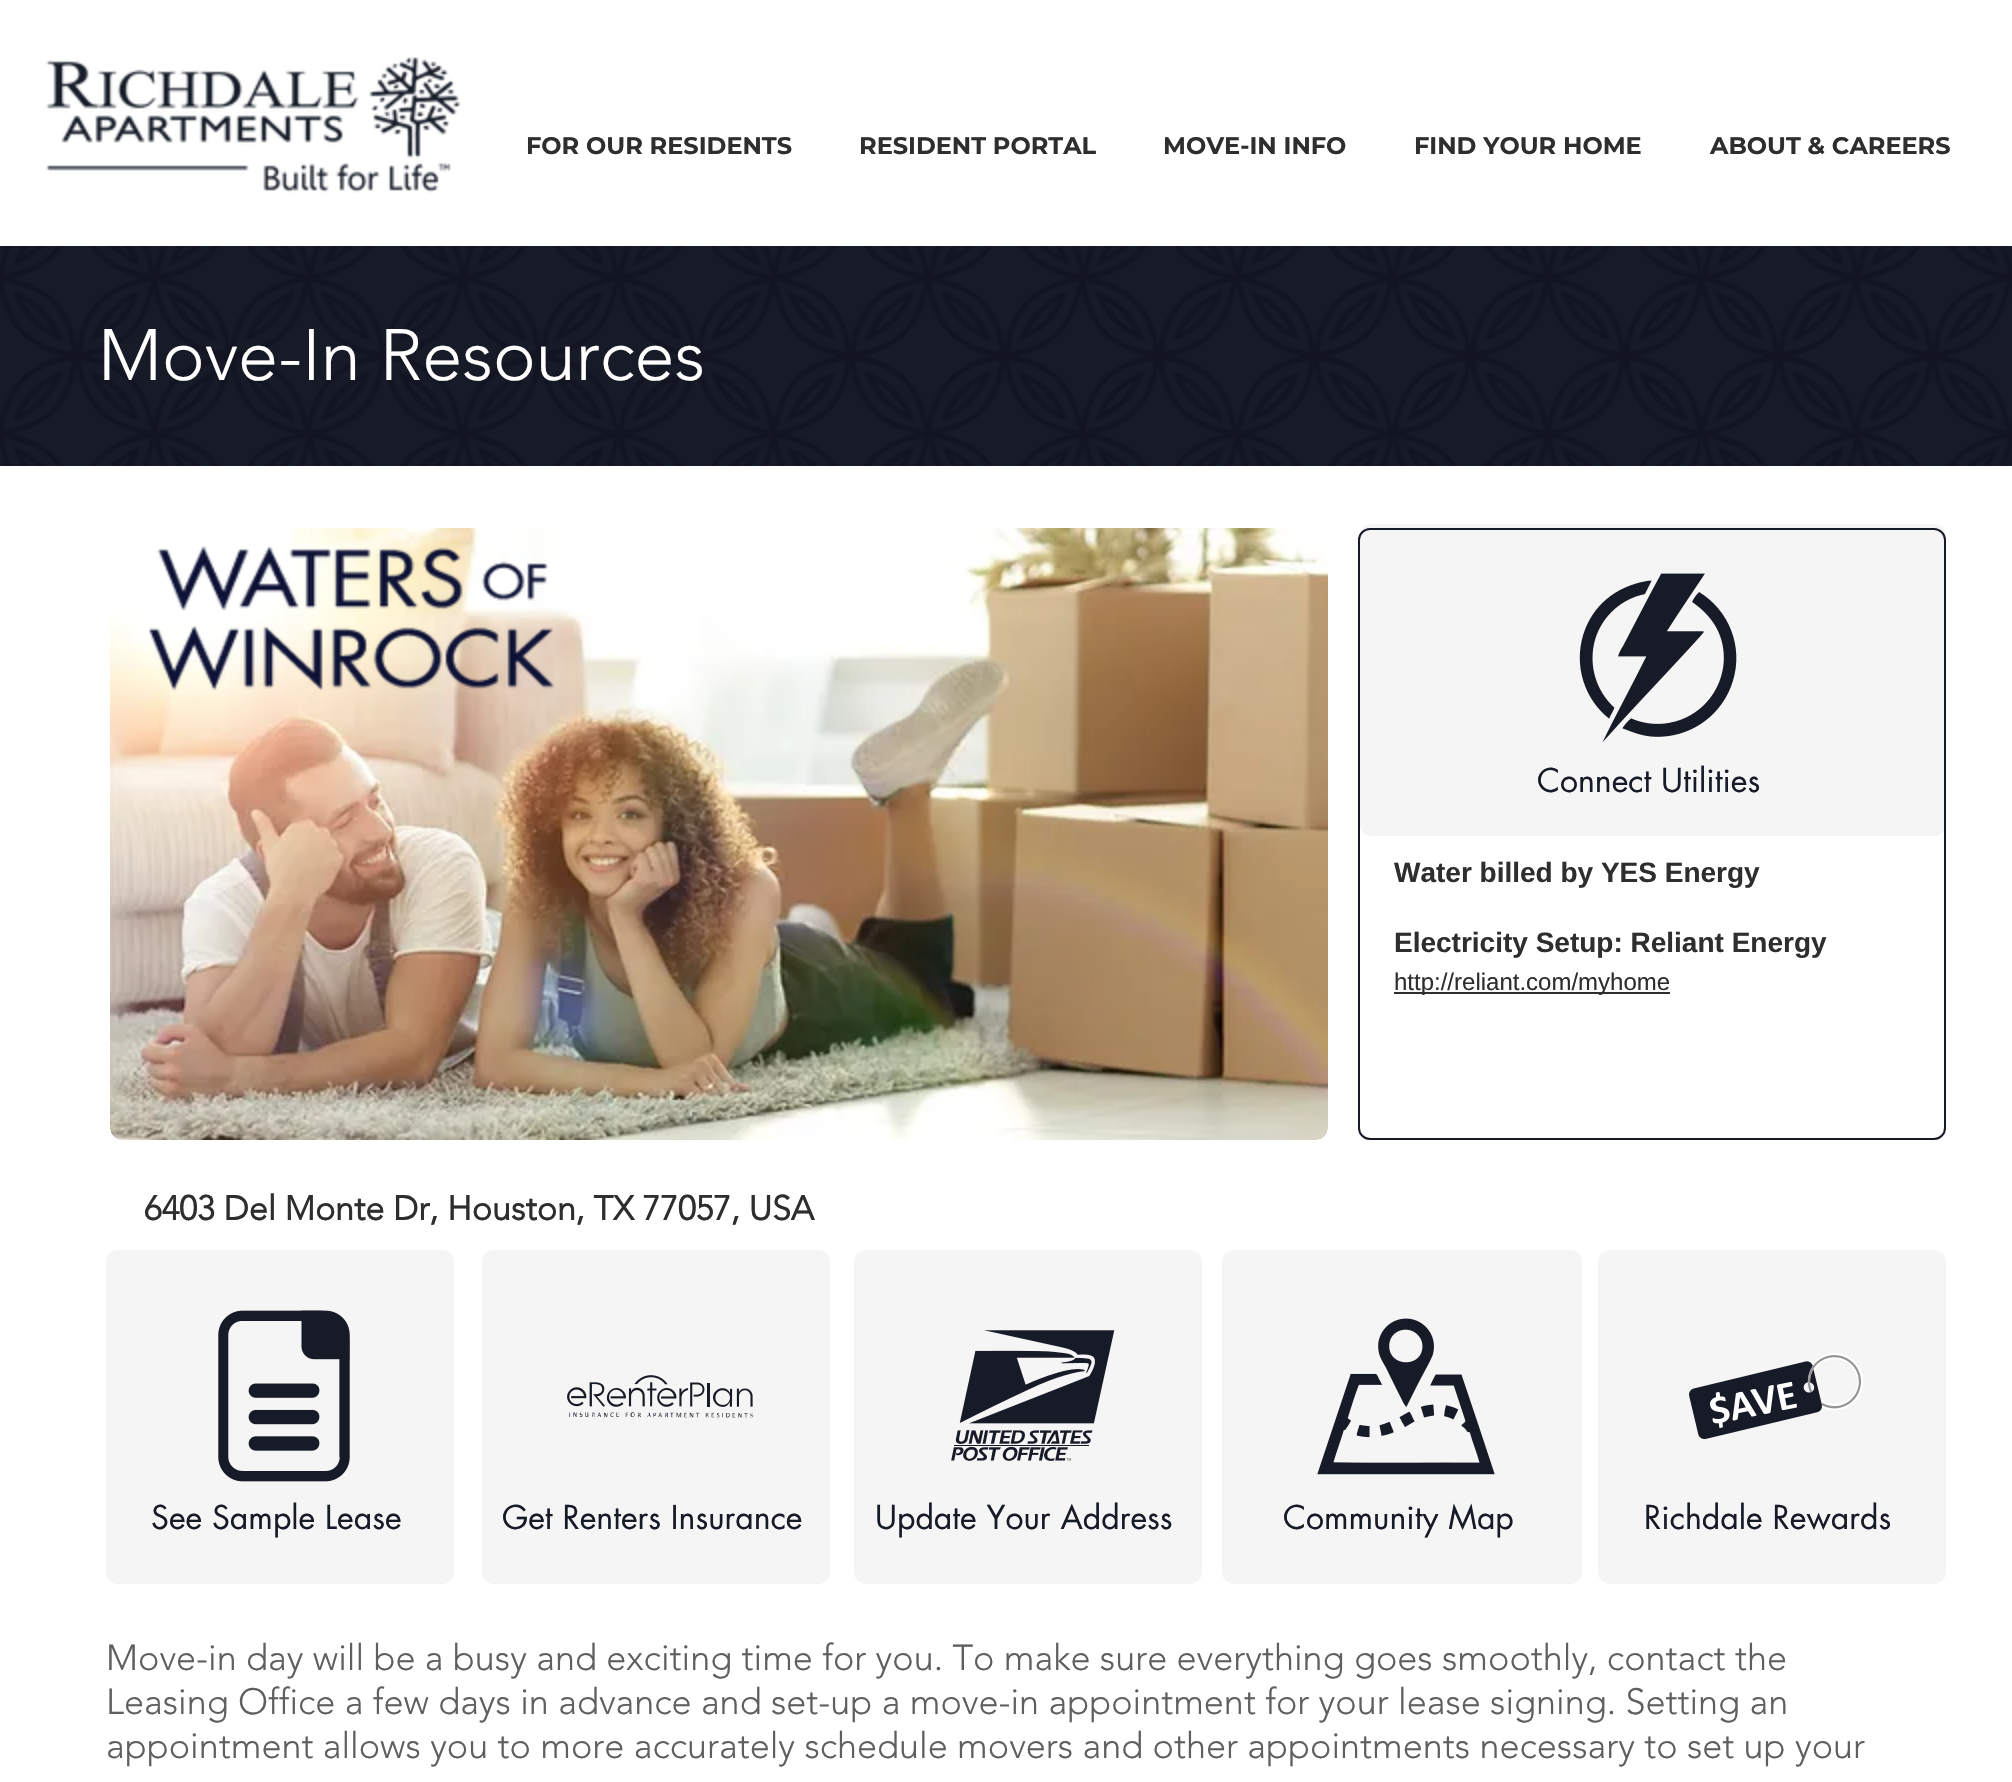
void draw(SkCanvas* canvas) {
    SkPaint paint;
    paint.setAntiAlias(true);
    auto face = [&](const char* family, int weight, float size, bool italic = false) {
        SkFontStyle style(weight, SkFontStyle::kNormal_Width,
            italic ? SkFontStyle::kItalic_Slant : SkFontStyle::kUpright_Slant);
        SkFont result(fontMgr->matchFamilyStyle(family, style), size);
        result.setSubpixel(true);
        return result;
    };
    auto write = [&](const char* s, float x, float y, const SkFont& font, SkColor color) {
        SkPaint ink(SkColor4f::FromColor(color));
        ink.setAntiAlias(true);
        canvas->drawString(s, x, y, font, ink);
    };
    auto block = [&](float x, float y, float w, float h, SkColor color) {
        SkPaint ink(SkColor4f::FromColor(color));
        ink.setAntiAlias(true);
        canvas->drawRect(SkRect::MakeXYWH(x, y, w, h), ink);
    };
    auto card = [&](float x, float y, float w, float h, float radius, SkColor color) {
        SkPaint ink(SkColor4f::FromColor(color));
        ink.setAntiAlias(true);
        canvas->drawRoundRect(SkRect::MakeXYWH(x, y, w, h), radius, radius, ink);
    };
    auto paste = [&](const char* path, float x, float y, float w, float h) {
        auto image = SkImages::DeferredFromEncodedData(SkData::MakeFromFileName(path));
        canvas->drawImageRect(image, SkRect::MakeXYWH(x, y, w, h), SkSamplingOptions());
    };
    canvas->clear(SK_ColorWHITE);
    paste("pic1.png", 45, 57, 416, 136);
    auto kFont1 = face("Montserrat", 700, 24);
    write("FOR OUR RESIDENTS", 526, 154, kFont1, SkColorSetRGB(47, 46, 46));
    write("RESIDENT PORTAL", 859, 154, kFont1, SkColorSetRGB(47, 46, 46));
    write("MOVE-IN INFO", 1163, 154, kFont1, SkColorSetRGB(47, 46, 46));
    write("FIND YOUR HOME", 1414, 154, kFont1, SkColorSetRGB(47, 46, 46));
    write("ABOUT & CAREERS", 1710, 154, kFont1, SkColorSetRGB(47, 46, 46));
    block(0, 246, 2012, 220, SkColorSetRGB(23, 26, 39));
    paste("pic2.png", 0, 246, 2012, 220);
    auto kFont2 = face("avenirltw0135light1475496", 300, 72);
    write("Move-In Resources", 98, 380, kFont2, SK_ColorWHITE);
    paste("pic3.png", 110, 528, 1218, 612);
    paste("pic4.png", 149, 545, 406, 146);
    card(1360, 524, 586, 312, 12, SkColorSetRGB(245, 245, 245));
    paste("pic5.png", 1579, 573, 158, 170);
    auto kFont3 = face("futura", 400, 32);
    write("Connect Utilities", 1537, 792, kFont3, SkColorSetRGB(23, 26, 39));
    paint.setStyle(SkPaint::kStroke_Style);
    paint.setStrokeWidth(2);
    paint.setColor(SkColorSetRGB(23, 26, 39));
    canvas->drawRoundRect(SkRect::MakeXYWH(1359, 529, 586, 610), 11, 11, paint);
    auto kFont4 = face("Liberation Sans", 700, 28);
    write("Water billed by YES Energy", 1394, 882, kFont4, SkColorSetRGB(47, 46, 46));
    write("Electricity Setup: Reliant Energy", 1394, 952, kFont4, SkColorSetRGB(47, 46, 46));
    block(1394, 992, 276, 2, SkColorSetRGB(47, 46, 46));
    auto kFont5 = face("Liberation Sans", 400, 24);
    write("http://reliant.com/myhome", 1394, 990, kFont5, SkColorSetRGB(47, 46, 46));
    auto kFont6 = face("avenirltw0135light1475496", 700, 34);
    write("6403 Del Monte Dr, Houston, TX 77057, USA", 144, 1220, kFont6, SkColorSetRGB(47, 46, 46));
    card(106, 1250, 348, 334, 12, SkColorSetRGB(245, 245, 245));
    paste("pic6.png", 218, 1310, 132, 172);
    write("See Sample Lease", 151, 1529, kFont3, SkColorSetRGB(23, 26, 39));
    card(482, 1250, 348, 334, 12, SkColorSetRGB(245, 245, 245));
    paste("pic7.png", 567, 1375, 186, 43);
    write("Get Renters Insurance", 502, 1529, kFont3, SkColorSetRGB(23, 26, 39));
    card(854, 1250, 348, 334, 12, SkColorSetRGB(245, 245, 245));
    paste("pic8.png", 951, 1330, 164, 131);
    write("Update Your Address", 875, 1529, kFont3, SkColorSetRGB(23, 26, 39));
    card(1222, 1250, 360, 334, 12, SkColorSetRGB(245, 245, 245));
    paste("pic9.png", 1317, 1318, 178, 157);
    write("Community Map", 1283, 1529, kFont3, SkColorSetRGB(23, 26, 39));
    card(1598, 1250, 348, 334, 12, SkColorSetRGB(245, 245, 245));
    paste("pic10.png", 1689, 1353, 174, 87);
    write("Richdale Rewards", 1644, 1529, kFont3, SkColorSetRGB(23, 26, 39));
    auto kFont7 = face("avenirltw0135light1475496", 300, 36);
    write("Move-in day will be a busy and exciting time for you. To make sure everything goes smoothly, contact the", 106, 1670, kFont7, SkColorSetRGB(96, 94, 94));
    write("Leasing Office a few days in advance and set-up a move-in appointment for your lease signing. Setting an", 106, 1714, kFont7, SkColorSetRGB(96, 94, 94));
    write("appointment allows you to more accurately schedule movers and other appointments necessary to set up your", 106, 1758, kFont7, SkColorSetRGB(96, 94, 94));
}
